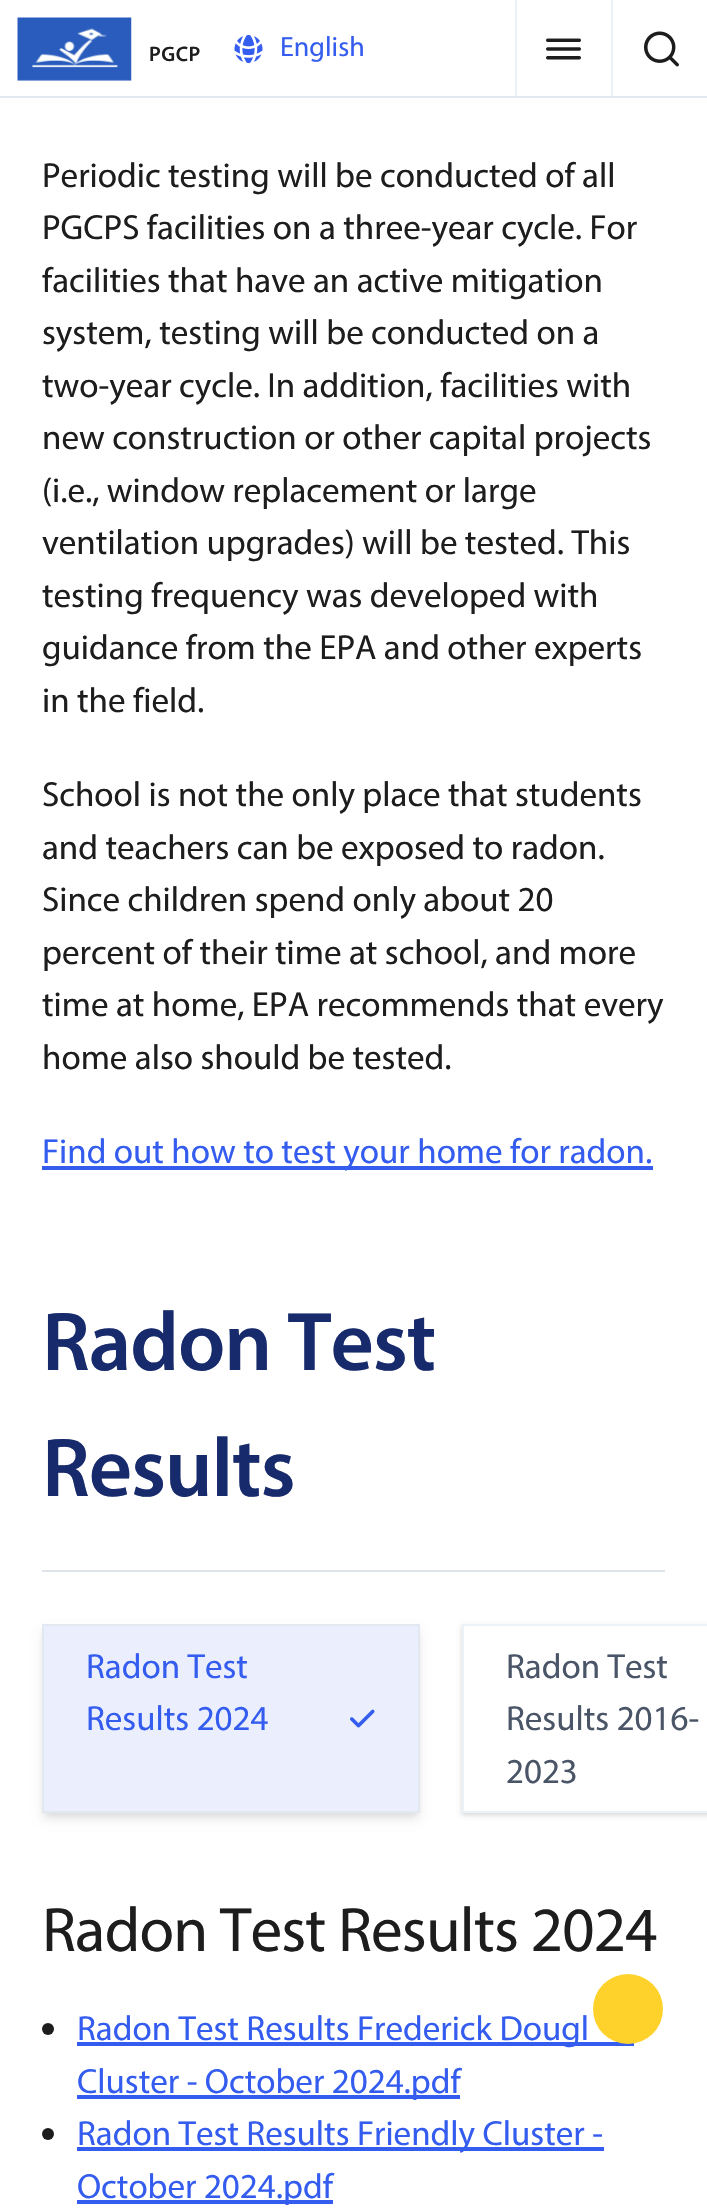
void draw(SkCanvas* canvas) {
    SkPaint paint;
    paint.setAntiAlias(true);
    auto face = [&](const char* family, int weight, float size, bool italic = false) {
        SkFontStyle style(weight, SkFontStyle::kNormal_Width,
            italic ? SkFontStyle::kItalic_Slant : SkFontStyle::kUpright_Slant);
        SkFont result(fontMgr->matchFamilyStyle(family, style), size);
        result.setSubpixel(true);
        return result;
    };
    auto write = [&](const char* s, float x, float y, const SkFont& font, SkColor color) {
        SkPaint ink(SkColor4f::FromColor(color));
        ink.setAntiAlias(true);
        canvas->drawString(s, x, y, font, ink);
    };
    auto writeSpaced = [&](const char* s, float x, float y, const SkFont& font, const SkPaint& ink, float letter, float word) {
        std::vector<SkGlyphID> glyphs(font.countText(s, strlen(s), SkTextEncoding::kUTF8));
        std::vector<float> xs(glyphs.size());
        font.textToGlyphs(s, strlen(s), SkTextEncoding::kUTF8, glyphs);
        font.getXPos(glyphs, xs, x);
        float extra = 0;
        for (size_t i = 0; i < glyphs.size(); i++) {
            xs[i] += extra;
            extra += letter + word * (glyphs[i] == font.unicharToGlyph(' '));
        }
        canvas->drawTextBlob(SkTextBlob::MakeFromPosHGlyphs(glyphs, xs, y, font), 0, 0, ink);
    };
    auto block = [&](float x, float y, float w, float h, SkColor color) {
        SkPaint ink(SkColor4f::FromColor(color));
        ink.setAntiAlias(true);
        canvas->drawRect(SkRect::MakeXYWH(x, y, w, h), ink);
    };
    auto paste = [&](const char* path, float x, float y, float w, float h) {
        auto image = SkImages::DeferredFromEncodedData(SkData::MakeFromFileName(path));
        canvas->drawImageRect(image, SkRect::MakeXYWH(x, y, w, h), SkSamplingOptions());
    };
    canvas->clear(SK_ColorWHITE);
    block(0, 96, 707, 2, SkColorSetRGB(226, 232, 239));
    paste("pic1.png", 17, 17, 115, 64);
    auto kFont1 = face("Myriad", 600, 21);
    paint.setColor(SkColorSetRGB(29, 29, 29));
    writeSpaced("PGCP", 149, 61, kFont1, paint, 0.5f, 0);
    block(515, 0, 2, 96, SkColorSetRGB(237, 242, 247));
    paste("pic2.png", 546, 38, 35, 22);
    block(611, 0, 2, 96, SkColorSetRGB(237, 242, 247));
    paste("pic3.png", 644, 31, 35, 36);
    paste("pic4.png", 234, 35, 29, 28);
    auto kFont2 = face("Myriad", 400, 28);
    write("English", 280, 56, kFont2, SkColorSetRGB(52, 93, 239));
    auto kFont3 = face("Myriad", 400, 35);
    write("Periodic testing will be conducted of all", 42, 187, kFont3, SkColorSetRGB(29, 29, 29));
    write("PGCPS facilities on a three-year cycle. For", 42, 239, kFont3, SkColorSetRGB(29, 29, 29));
    write("facilities that have an active mitigation", 42, 292, kFont3, SkColorSetRGB(29, 29, 29));
    write("system, testing will be conducted on a", 42, 344, kFont3, SkColorSetRGB(29, 29, 29));
    write("two-year cycle. In addition, facilities with", 42, 397, kFont3, SkColorSetRGB(29, 29, 29));
    write("new construction or other capital projects", 42, 449, kFont3, SkColorSetRGB(29, 29, 29));
    write("(i.e., window replacement or large", 42, 502, kFont3, SkColorSetRGB(29, 29, 29));
    write("ventilation upgrades) will be tested. This", 42, 554, kFont3, SkColorSetRGB(29, 29, 29));
    write("testing frequency was developed with", 42, 607, kFont3, SkColorSetRGB(29, 29, 29));
    write("guidance from the EPA and other experts", 42, 659, kFont3, SkColorSetRGB(29, 29, 29));
    write("in the field.", 42, 712, kFont3, SkColorSetRGB(29, 29, 29));
    write("School is not the only place that students", 42, 806, kFont3, SkColorSetRGB(29, 29, 29));
    write("and teachers can be exposed to radon.", 42, 859, kFont3, SkColorSetRGB(29, 29, 29));
    write("Since children spend only about 20", 42, 911, kFont3, SkColorSetRGB(29, 29, 29));
    write("percent of their time at school, and more", 42, 964, kFont3, SkColorSetRGB(29, 29, 29));
    write("time at home, EPA recommends that every", 42, 1016, kFont3, SkColorSetRGB(29, 29, 29));
    write("home also should be tested.", 42, 1069, kFont3, SkColorSetRGB(29, 29, 29));
    block(42, 1166, 611, 4, SkColorSetRGB(52, 93, 239));
    write("Find out how to test your home for radon.", 42, 1163, kFont3, SkColorSetRGB(52, 93, 239));
    block(42, 1570, 623, 2, SkColorSetRGB(223, 228, 234));
    auto kFont4 = face("Myriad", 600, 84);
    paint.setColor(SkColorSetRGB(23, 42, 108));
    writeSpaced("Radon Test", 42, 1370, kFont4, paint, -1.1f, 0);
    writeSpaced("Results", 42, 1496, kFont4, paint, -1.1f, 0);
    paint.setColor(SkColorSetARGB(26, 0, 0, 0));
    paint.setMaskFilter(SkMaskFilter::MakeBlur(kNormal_SkBlurStyle, 5));
    canvas->drawRect(SkRect::MakeXYWH(44, 1633, 374, 185), paint);
    paint.setMaskFilter(nullptr);
    paint.setColor(SkColorSetARGB(15, 0, 0, 0));
    paint.setMaskFilter(SkMaskFilter::MakeBlur(kNormal_SkBlurStyle, 3.5f));
    canvas->drawRect(SkRect::MakeXYWH(44, 1629, 374, 186), paint);
    paint.setMaskFilter(nullptr);
    paint.setColor(SkColorSetRGB(235, 239, 253));
    canvas->drawRect(SkRect::MakeXYWH(43, 1625, 376, 187), paint);
    paint.setStyle(SkPaint::kStroke_Style);
    paint.setStrokeWidth(2);
    paint.setColor(SkColorSetRGB(226, 232, 239));
    canvas->drawRect(SkRect::MakeXYWH(43, 1625, 376, 187), paint);
    write("Radon Test", 86, 1678, kFont3, SkColorSetRGB(52, 93, 239));
    write("Results 2024", 86, 1730, kFont3, SkColorSetRGB(52, 93, 239));
    paste("pic5.png", 350, 1709, 25, 19);
    canvas->save();
    canvas->clipPath(SkPathBuilder(SkPathFillType::kEvenOdd).moveTo(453, 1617).lineTo(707, 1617).lineTo(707, 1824).lineTo(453, 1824).close().moveTo(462, 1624).lineTo(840, 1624).lineTo(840, 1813).lineTo(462, 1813).close().detach(), true);
    paint.setStyle(SkPaint::kFill_Style);
    paint.setColor(SkColorSetARGB(26, 0, 0, 0));
    paint.setMaskFilter(SkMaskFilter::MakeBlur(kNormal_SkBlurStyle, 2.5f));
    canvas->drawRect(SkRect::MakeXYWH(462, 1626, 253, 189), paint);
    paint.setMaskFilter(nullptr);
    canvas->restore();
    canvas->save();
    canvas->clipPath(SkPathBuilder(SkPathFillType::kEvenOdd).moveTo(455, 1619).lineTo(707, 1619).lineTo(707, 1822).lineTo(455, 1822).close().moveTo(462, 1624).lineTo(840, 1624).lineTo(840, 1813).lineTo(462, 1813).close().detach(), true);
    paint.setColor(SkColorSetARGB(15, 0, 0, 0));
    paint.setMaskFilter(SkMaskFilter::MakeBlur(kNormal_SkBlurStyle, 2));
    canvas->drawRect(SkRect::MakeXYWH(462, 1626, 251, 189), paint);
    paint.setMaskFilter(nullptr);
    canvas->restore();
    paint.setStyle(SkPaint::kStroke_Style);
    paint.setColor(SkColorSetRGB(237, 242, 247));
    canvas->drawRect(SkRect::MakeXYWH(463, 1625, 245, 187), paint);
    write("Radon Test", 506, 1678, kFont3, SkColorSetRGB(74, 85, 104));
    write("Results 2016-", 506, 1730, kFont3, SkColorSetRGB(74, 85, 104));
    write("2023", 506, 1783, kFont3, SkColorSetRGB(74, 85, 104));
    auto kFont5 = face("Myriad", 400, 63);
    paint.setStyle(SkPaint::kFill_Style);
    paint.setColor(SkColorSetRGB(29, 29, 29));
    writeSpaced("Radon Test Results 2024", 42, 1951, kFont5, paint, -0.8f, 0);
    canvas->drawCircle(48, 2029, 6, paint);
    block(77, 2042, 557, 4, SkColorSetRGB(52, 93, 239));
    write("Radon Test Results Frederick Dougl", 77, 2040, kFont3, SkColorSetRGB(52, 93, 239));
    block(77, 2095, 383, 4, SkColorSetRGB(52, 93, 239));
    write("Cluster - October 2024.pdf", 77, 2093, kFont3, SkColorSetRGB(52, 93, 239));
    canvas->drawCircle(48, 2134, 6, paint);
    block(77, 2147, 527, 4, SkColorSetRGB(52, 93, 239));
    write("Radon Test Results Friendly Cluster -", 77, 2145, kFont3, SkColorSetRGB(52, 93, 239));
    block(77, 2200, 256, 4, SkColorSetRGB(52, 93, 239));
    write("October 2024.pdf", 77, 2198, kFont3, SkColorSetRGB(52, 93, 239));
    paint.setColor(SkColorSetRGB(255, 210, 43));
    canvas->drawCircle(628, 2009, 35, paint);
}
